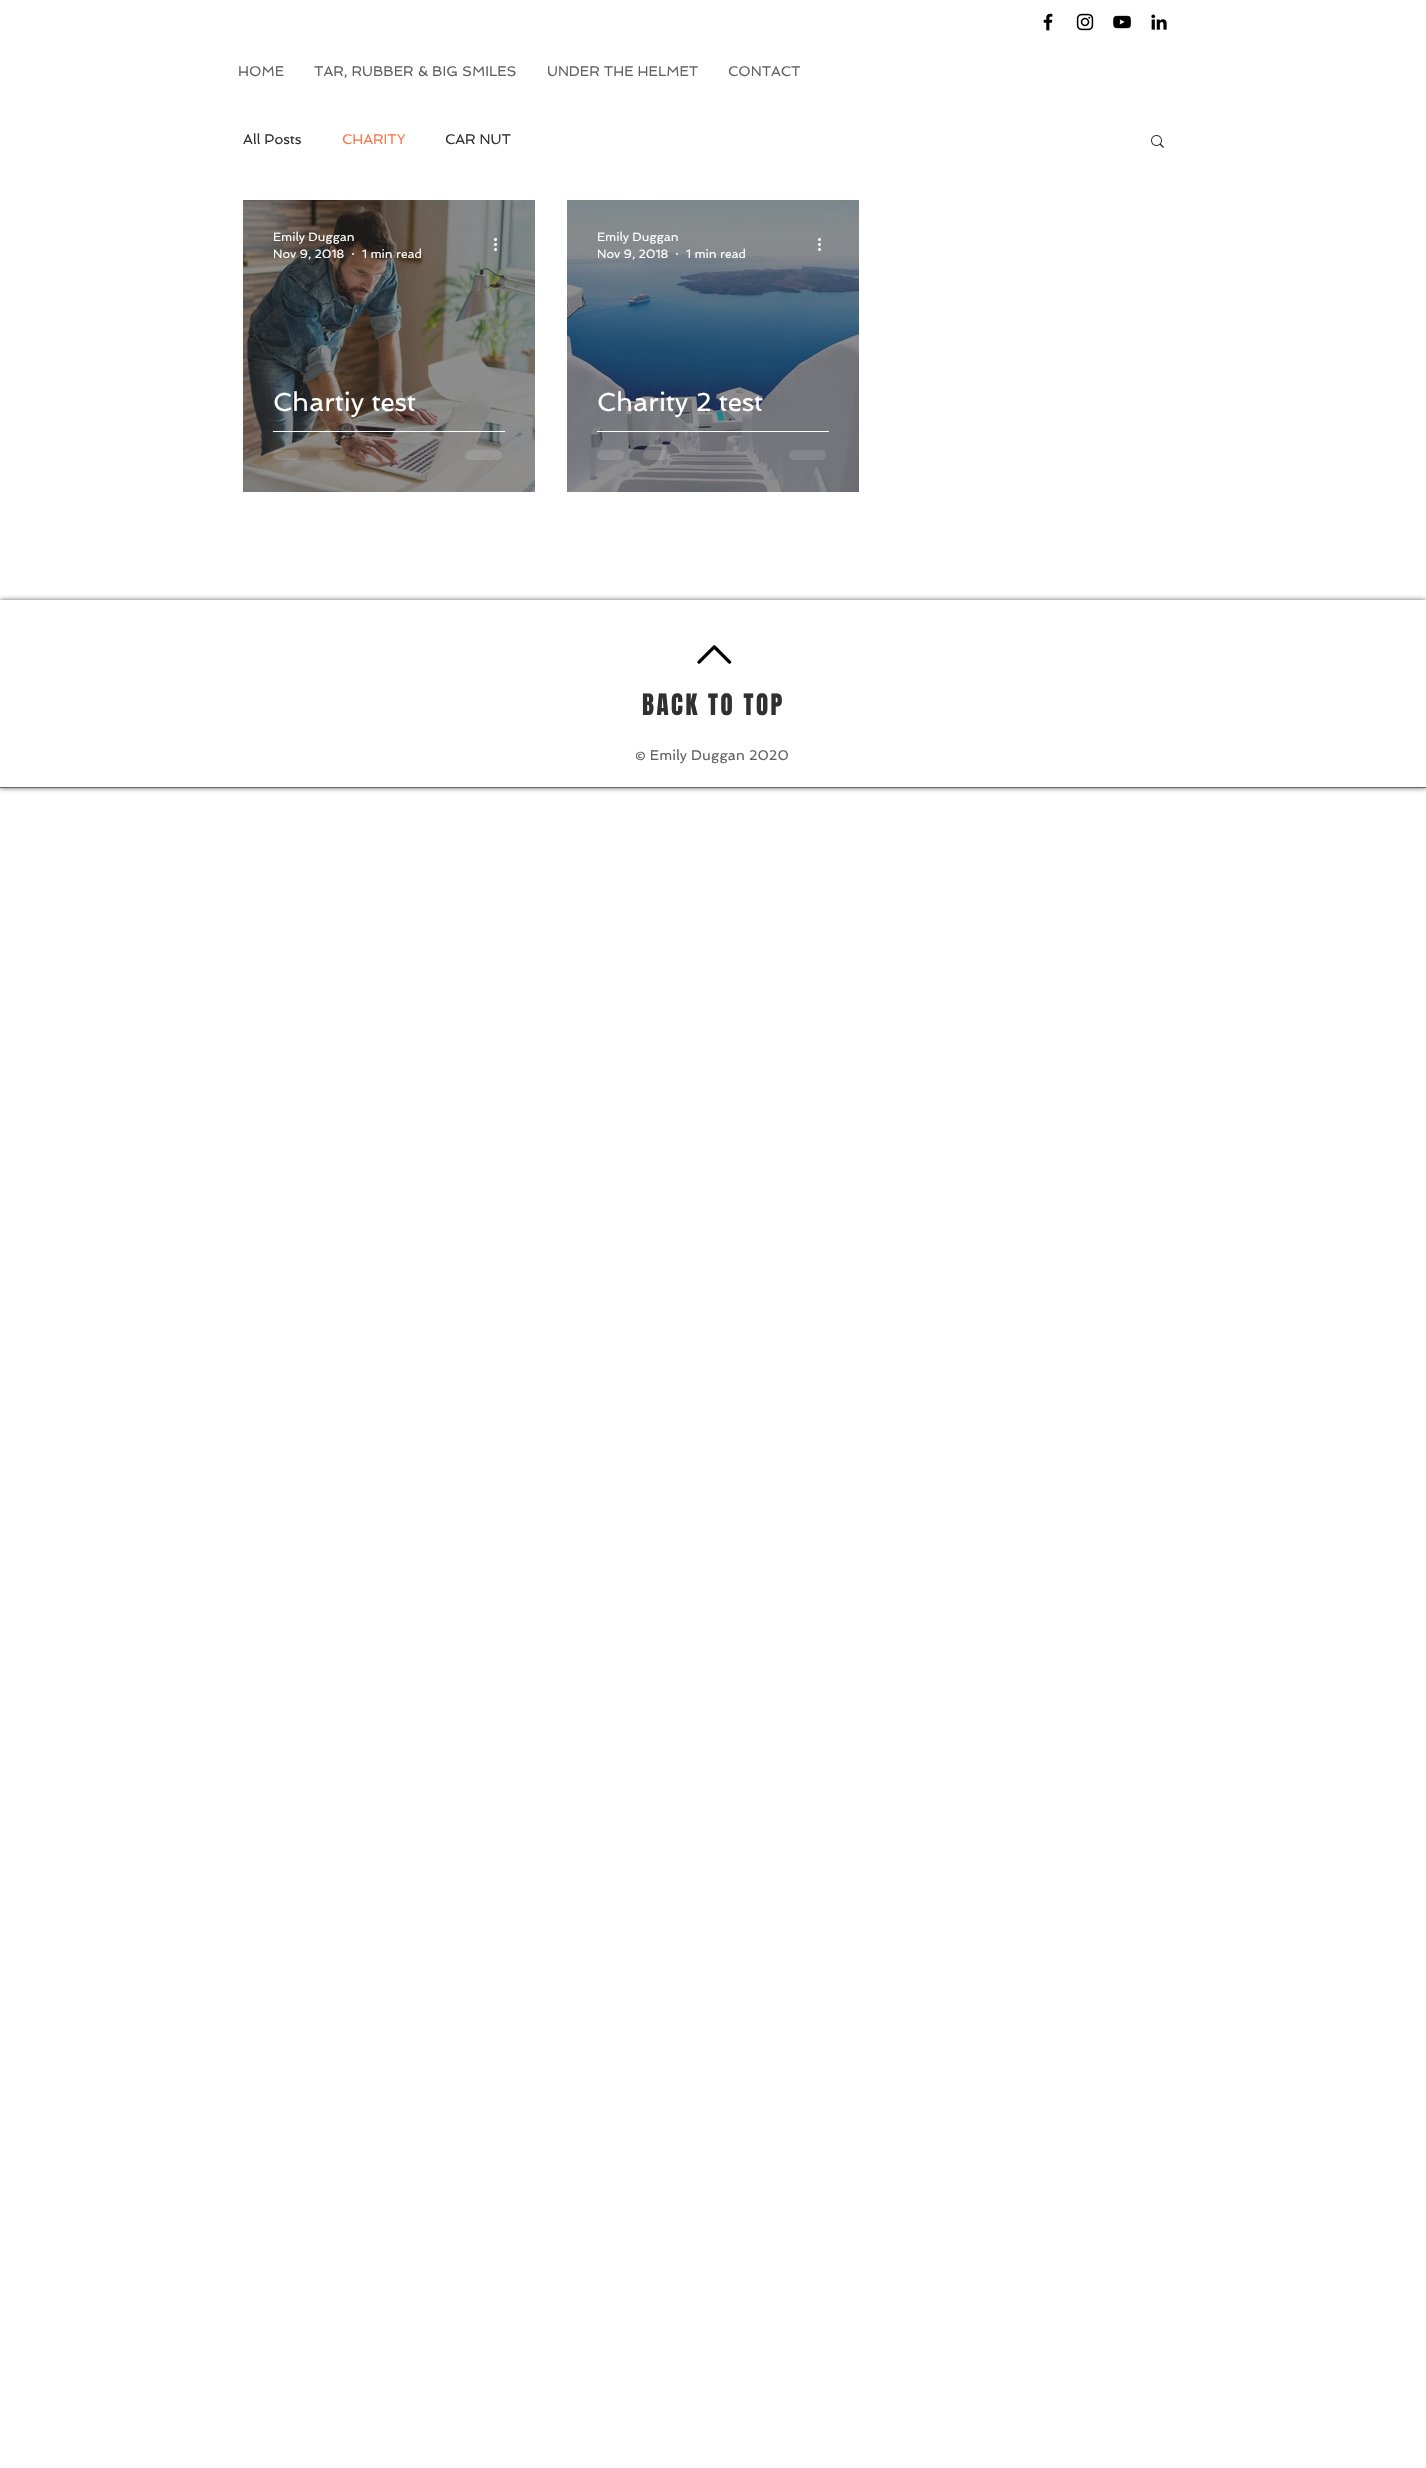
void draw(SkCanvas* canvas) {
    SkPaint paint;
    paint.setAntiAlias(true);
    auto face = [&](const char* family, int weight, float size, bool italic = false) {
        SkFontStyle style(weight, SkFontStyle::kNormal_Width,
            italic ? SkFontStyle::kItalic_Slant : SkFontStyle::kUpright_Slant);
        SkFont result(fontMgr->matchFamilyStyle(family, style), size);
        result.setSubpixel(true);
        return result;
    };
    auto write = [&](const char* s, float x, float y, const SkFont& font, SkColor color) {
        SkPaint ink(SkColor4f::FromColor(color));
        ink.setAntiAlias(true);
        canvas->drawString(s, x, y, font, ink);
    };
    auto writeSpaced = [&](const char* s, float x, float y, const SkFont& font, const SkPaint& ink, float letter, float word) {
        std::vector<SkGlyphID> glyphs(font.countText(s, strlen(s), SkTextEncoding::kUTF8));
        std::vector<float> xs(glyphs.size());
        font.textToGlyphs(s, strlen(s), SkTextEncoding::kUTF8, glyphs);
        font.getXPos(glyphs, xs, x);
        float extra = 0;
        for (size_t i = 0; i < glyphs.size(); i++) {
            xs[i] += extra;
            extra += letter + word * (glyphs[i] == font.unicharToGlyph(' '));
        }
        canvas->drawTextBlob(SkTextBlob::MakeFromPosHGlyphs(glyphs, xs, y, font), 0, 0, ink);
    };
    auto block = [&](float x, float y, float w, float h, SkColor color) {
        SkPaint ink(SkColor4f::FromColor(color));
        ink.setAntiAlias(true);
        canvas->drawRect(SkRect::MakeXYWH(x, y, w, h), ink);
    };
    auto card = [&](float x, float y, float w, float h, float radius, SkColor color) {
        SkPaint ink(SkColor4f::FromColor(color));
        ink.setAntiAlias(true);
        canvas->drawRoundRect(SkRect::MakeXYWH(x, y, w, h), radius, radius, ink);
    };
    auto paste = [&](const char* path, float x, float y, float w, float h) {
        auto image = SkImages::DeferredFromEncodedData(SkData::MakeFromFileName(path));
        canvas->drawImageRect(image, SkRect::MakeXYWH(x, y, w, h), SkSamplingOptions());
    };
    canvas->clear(SK_ColorWHITE);
    paste("pic1.png", 1043, 13, 10, 18);
    paste("pic2.png", 1076, 13, 18, 18);
    paste("pic3.png", 1113, 15, 19, 14);
    paste("pic4.png", 1151, 14, 16, 16);
    auto kFont1 = face("Spinnaker", 400, 14);
    write("HOME", 238, 76, kFont1, SkColorSetRGB(97, 97, 97));
    write("TAR, RUBBER & BIG SMILES", 314, 76, kFont1, SkColorSetRGB(97, 97, 97));
    write("UNDER THE HELMET", 547, 76, kFont1, SkColorSetRGB(97, 97, 97));
    write("CONTACT", 728, 76, kFont1, SkColorSetRGB(97, 97, 97));
    write("All Posts", 243, 144, kFont1, SkColorSetRGB(48, 48, 48));
    write("CHARITY", 342, 144, kFont1, SkColorSetRGB(250, 117, 72));
    write("CAR NUT", 445, 144, kFont1, SkColorSetRGB(48, 48, 48));
    paste("pic5.png", 1151, 135, 13, 13);
    paste("pic6.png", 243, 200, 292, 292);
    auto kFont2 = face("Spinnaker", 400, 12);
    write("Emily Duggan", 273, 241, kFont2, SK_ColorWHITE);
    write("Nov 9, 2018", 273, 258, kFont2, SK_ColorWHITE);
    paint.setColor(SK_ColorWHITE);
    canvas->drawCircle(353, 254, 1, paint);
    write("1 min read", 362, 258, kFont2, SK_ColorWHITE);
    paste("pic7.png", 494, 238, 3, 13);
    auto kFont3 = face("Spinnaker", 400, 26);
    write("Chartiy test", 273, 411, kFont3, SK_ColorWHITE);
    block(273, 431, 232, 1, SK_ColorWHITE);
    card(273, 450, 27, 10, 5, SkColorSetARGB(31, 255, 255, 255));
    card(319, 450, 27, 10, 5, SkColorSetARGB(31, 255, 255, 255));
    card(465, 450, 37, 10, 5, SkColorSetARGB(31, 255, 255, 255));
    paste("pic8.png", 567, 200, 292, 292);
    write("Emily Duggan", 597, 241, kFont2, SK_ColorWHITE);
    write("Nov 9, 2018", 597, 258, kFont2, SK_ColorWHITE);
    canvas->drawCircle(677, 254, 1, paint);
    write("1 min read", 686, 258, kFont2, SK_ColorWHITE);
    paste("pic9.png", 818, 238, 3, 13);
    write("Charity 2 test", 597, 411, kFont3, SK_ColorWHITE);
    block(597, 431, 232, 1, SK_ColorWHITE);
    card(597, 450, 27, 10, 5, SkColorSetARGB(31, 255, 255, 255));
    card(643, 450, 27, 10, 5, SkColorSetARGB(31, 255, 255, 255));
    card(789, 450, 37, 10, 5, SkColorSetRGB(133, 134, 139));
    canvas->save();
    canvas->clipPath(SkPathBuilder(SkPathFillType::kEvenOdd).moveTo(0, 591).lineTo(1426, 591).lineTo(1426, 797).lineTo(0, 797).close().moveTo(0, 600).lineTo(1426, 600).lineTo(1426, 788).lineTo(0, 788).close().detach(), true);
    paint.setColor(SkColorSetARGB(153, 0, 0, 0));
    paint.setMaskFilter(SkMaskFilter::MakeBlur(kNormal_SkBlurStyle, 2.5f));
    canvas->drawRect(SkRect::MakeXYWH(0, 600, 1426, 188), paint);
    paint.setMaskFilter(nullptr);
    canvas->restore();
    block(0, 787, 1426, 1, SkColorSetRGB(102, 102, 102));
    paste("pic10.png", 697, 645, 35, 19);
    auto kFont4 = face("Anton", 400, 25);
    paint.setColor(SkColorSetRGB(48, 48, 48));
    writeSpaced("BACK TO TOP", 642, 715, kFont4, paint, 2.5f, 0);
    write("© Emily Duggan 2020", 635, 760, kFont1, SkColorSetRGB(97, 97, 97));
}
